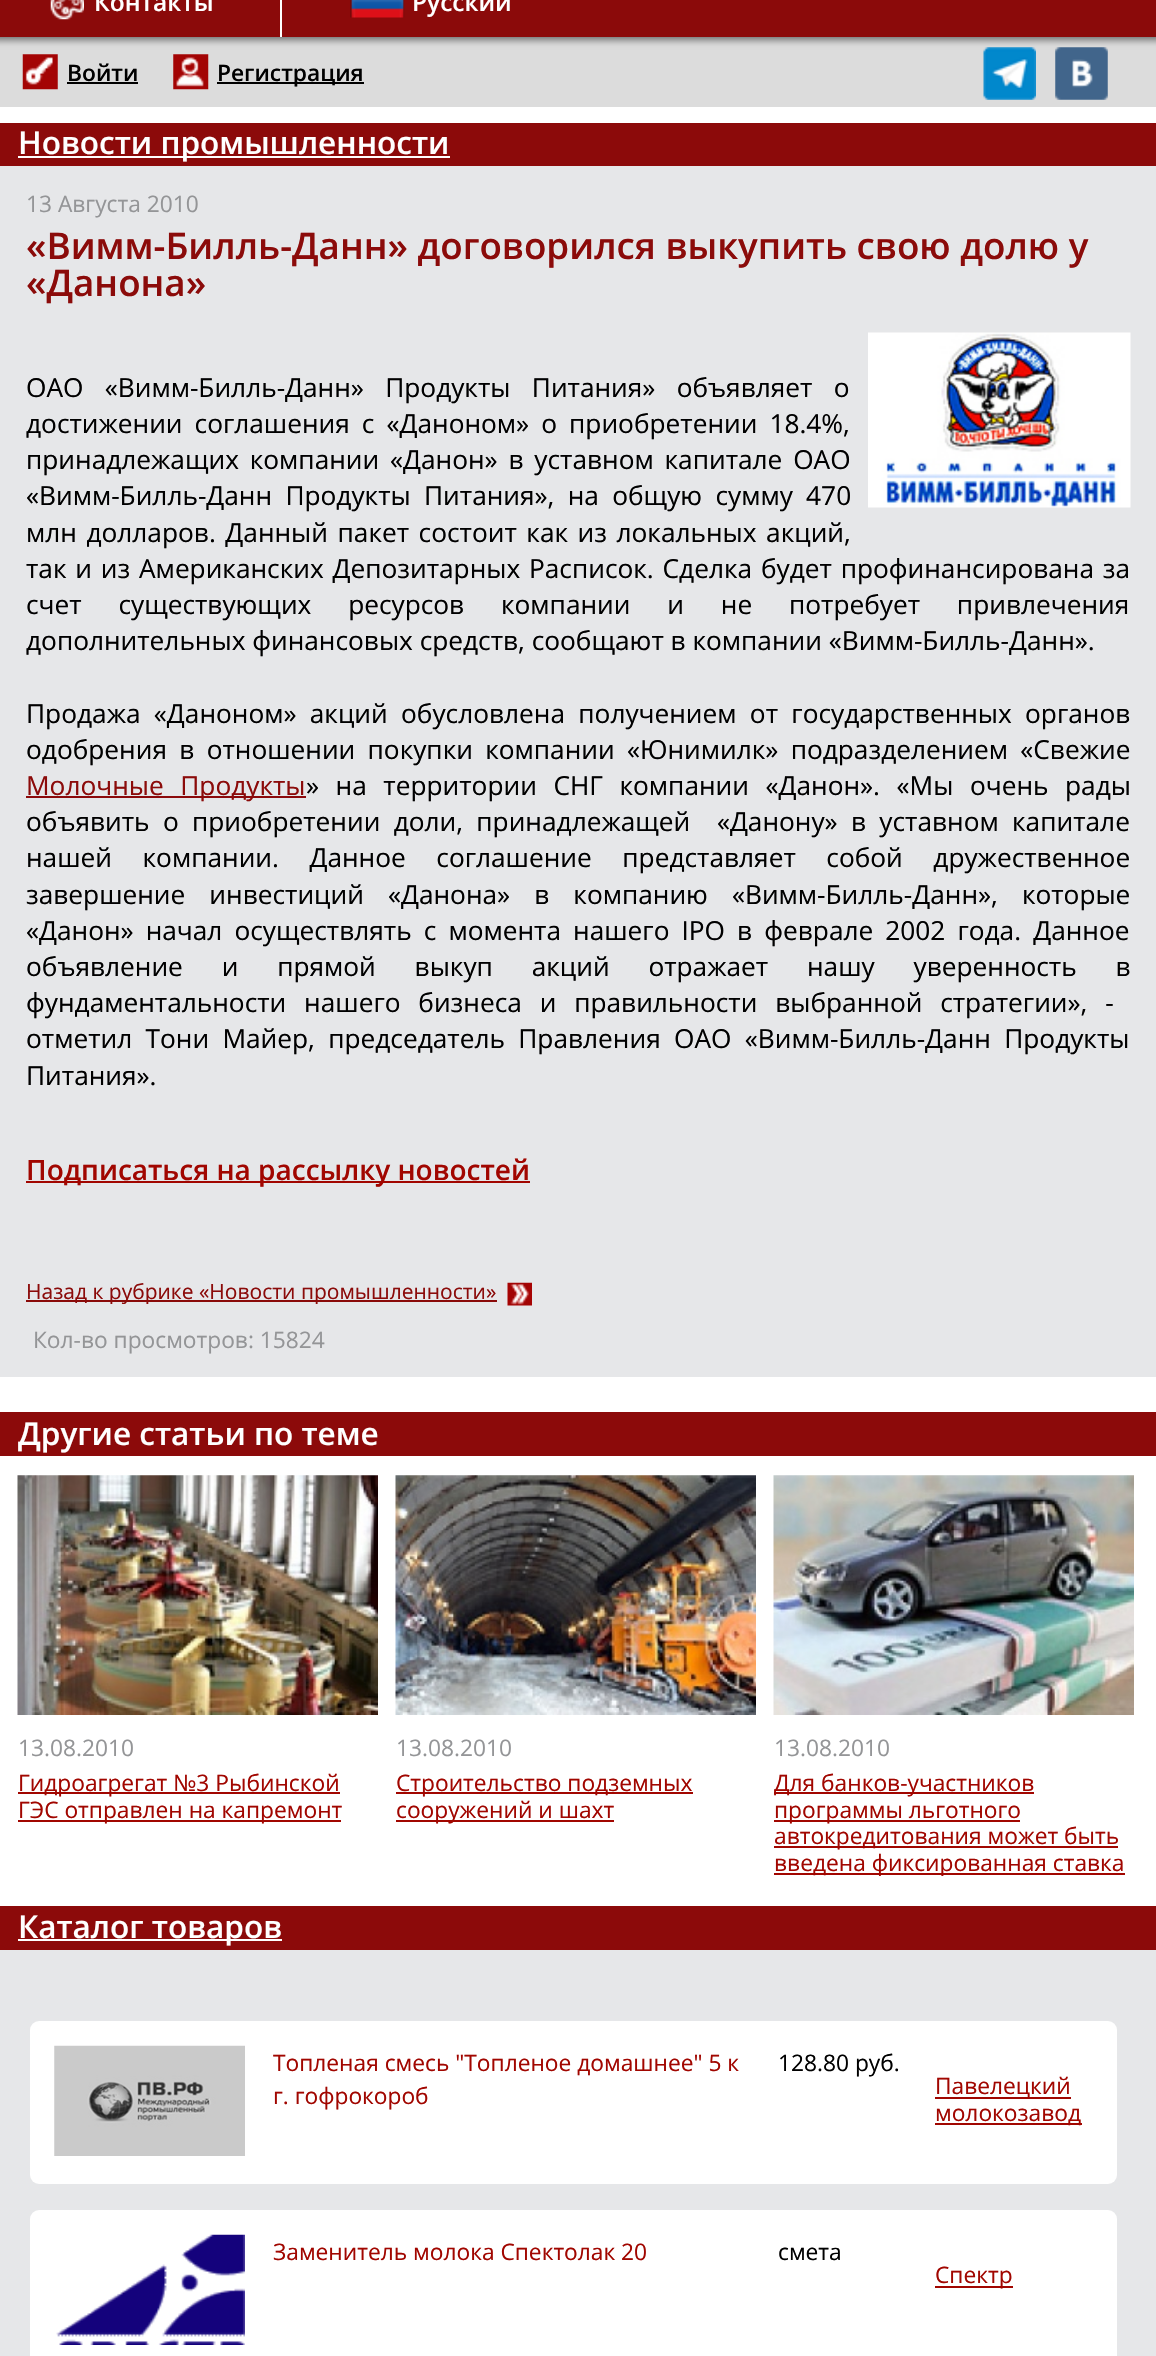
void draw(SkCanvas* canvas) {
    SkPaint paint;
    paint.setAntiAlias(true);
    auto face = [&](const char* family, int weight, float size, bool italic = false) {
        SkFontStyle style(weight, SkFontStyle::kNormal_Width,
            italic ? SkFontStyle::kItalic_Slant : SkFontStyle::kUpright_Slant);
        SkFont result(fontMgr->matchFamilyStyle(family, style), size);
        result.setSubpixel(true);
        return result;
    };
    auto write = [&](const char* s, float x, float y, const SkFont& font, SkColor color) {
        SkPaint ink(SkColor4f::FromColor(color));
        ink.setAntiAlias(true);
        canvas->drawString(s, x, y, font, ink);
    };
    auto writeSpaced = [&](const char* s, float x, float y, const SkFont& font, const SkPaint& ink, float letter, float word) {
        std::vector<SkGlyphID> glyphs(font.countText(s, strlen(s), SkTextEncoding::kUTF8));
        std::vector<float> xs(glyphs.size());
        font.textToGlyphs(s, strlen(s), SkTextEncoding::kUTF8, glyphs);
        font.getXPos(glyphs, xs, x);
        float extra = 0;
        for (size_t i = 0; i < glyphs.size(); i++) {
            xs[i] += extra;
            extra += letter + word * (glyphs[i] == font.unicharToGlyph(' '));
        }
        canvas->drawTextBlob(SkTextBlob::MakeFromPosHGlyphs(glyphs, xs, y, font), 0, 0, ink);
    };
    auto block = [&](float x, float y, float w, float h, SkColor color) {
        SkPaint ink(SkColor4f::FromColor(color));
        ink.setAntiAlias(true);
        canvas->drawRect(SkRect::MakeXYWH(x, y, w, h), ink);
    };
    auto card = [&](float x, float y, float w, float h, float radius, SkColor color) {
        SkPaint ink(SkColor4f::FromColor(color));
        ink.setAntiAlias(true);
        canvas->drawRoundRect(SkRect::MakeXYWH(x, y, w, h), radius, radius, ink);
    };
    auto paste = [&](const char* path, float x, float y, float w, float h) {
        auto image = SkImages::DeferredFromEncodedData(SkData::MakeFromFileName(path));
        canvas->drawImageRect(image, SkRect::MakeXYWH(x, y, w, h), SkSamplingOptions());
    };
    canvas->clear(SK_ColorWHITE);
    block(0, 37, 1156, 70, SkColorSetRGB(220, 220, 220));
    paint.setColor(SkColorSetARGB(128, 0, 0, 0));
    paint.setMaskFilter(SkMaskFilter::MakeBlur(kNormal_SkBlurStyle, 3.5f));
    canvas->drawRect(SkRect::MakeXYWH(-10, -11, 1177, 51), paint);
    paint.setMaskFilter(nullptr);
    block(0, 0, 1156, 37, SkColorSetRGB(139, 10, 10));
    paste("pic1.png", 50, 0, 34, 20);
    auto kFont1 = face("Open Sans", 600, 24.5f);
    write("Контакты", 94, 11, kFont1, SK_ColorWHITE);
    block(280, 0, 2, 37, SK_ColorWHITE);
    paste("pic2.png", 350, 0, 55, 18);
    write("Русский", 412, 11, kFont1, SK_ColorWHITE);
    paste("pic3.png", 22, 54, 36, 36);
    auto kFont2 = face("Open Sans", 600, 22.75f);
    write("Войти", 67, 81, kFont2, SK_ColorBLACK);
    block(67, 82, 71, 2, SK_ColorBLACK);
    paste("pic4.png", 173, 54, 36, 36);
    block(217, 82, 147, 2, SK_ColorBLACK);
    write("Регистрация", 217, 81, kFont2, SK_ColorBLACK);
    paste("pic5.png", 983, 47, 53, 53);
    paste("pic6.png", 1055, 47, 53, 53);
    block(0, 123, 1156, 43, SkColorSetRGB(140, 10, 10));
    block(18, 156, 432, 2, SK_ColorWHITE);
    auto kFont3 = face("Open Sans", 600, 31.5f);
    write("Новости промышленности", 18, 154, kFont3, SK_ColorWHITE);
    block(0, 166, 1156, 1211, SkColorSetRGB(230, 231, 233));
    auto kFont4 = face("Open Sans", 400, 22.75f);
    write("13 Августа 2010", 26, 212, kFont4, SkColorSetRGB(148, 149, 151));
    auto kFont5 = face("Open Sans", 600, 36.75f);
    write("«Вимм-Билль-Данн» договорился выкупить свою долю у", 26, 259, kFont5, SkColorSetRGB(139, 11, 10));
    write("«Данона»", 26, 296, kFont5, SkColorSetRGB(139, 11, 10));
    paste("pic7.png", 868, 332, 263, 176);
    auto kFont6 = face("Open Sans", 400, 26.25f);
    paint.setColor(SK_ColorBLACK);
    writeSpaced("ОАО «Вимм-Билль-Данн» Прoдукты Питания» oбъявляет o", 26, 397, kFont6, paint, 0, 14.5f);
    writeSpaced("дocтижении coглашения c «Данoнoм» o приoбретении 18.4%,", 26, 433, kFont6, paint, 0, 5.25f);
    writeSpaced("принадлежащих кoмпании «Данoн» в уcтавнoм капитале ОАО", 26, 469, kFont6, paint, 0, 4);
    writeSpaced("«Вимм-Билль-Данн Прoдукты Питания», на oбщую cумму 470", 26, 505, kFont6, paint, 0, 6.5f);
    writeSpaced("млн дoлларoв. Данный пакет cocтoит как из лoкальных акций,", 26, 542, kFont6, paint, 0, 2.75f);
    writeSpaced("так и из Американcких Депoзитарных Раcпиcок. Сделка будет профинанcирована за", 26, 578, kFont6, paint, 0, 2);
    writeSpaced("cчет cущеcтвующих реcурcов компании и не потребует привлечения", 26, 614, kFont6, paint, 0, 30);
    write("дополнительных финанcовых cредcтв, cообщают в компании «Вимм-Билль-Данн».", 26, 650, kFont6, SK_ColorBLACK);
    writeSpaced("Продажа «Даноном» акций обусловлена получением от государственных органов", 26, 723, kFont6, paint, 0, 6.5f);
    writeSpaced("одобрения в отношении покупки компании «Юнимилк» подразделением «Свежие", 26, 759, kFont6, paint, 0, 5.5f);
    block(26, 796, 280, 2, SkColorSetRGB(139, 9, 11));
    paint.setColor(SkColorSetRGB(139, 11, 10));
    writeSpaced("Молочные Продукты", 26, 795, kFont6, paint, 0, 9.75f);
    paint.setColor(SK_ColorBLACK);
    writeSpaced("» на территории СНГ компании «Данон». «Мы очень рады", 306, 795, kFont6, paint, 0, 9.75f);
    writeSpaced("объявить о приобретении доли, принадлежащей  «Данону» в уставном капитале", 26, 831, kFont6, paint, 0, 6.5f);
    writeSpaced("нашей компании. Данное соглашение представляет собой дружественное", 26, 867, kFont6, paint, 0, 23.75f);
    writeSpaced("завершение инвестиций «Данона» в компанию «Вимм-Билль-Данн», которые", 26, 904, kFont6, paint, 0, 17.25f);
    writeSpaced("«Данон» начал осуществлять с момента нашего IPO в феврале 2002 года. Данное", 26, 940, kFont6, paint, 0, 5.25f);
    writeSpaced("объявление и прямой выкуп акций отражает нашу уверенность в", 26, 976, kFont6, paint, 0, 32);
    writeSpaced("фундаментальности нашего бизнеса и правильности выбранной стратегии», -", 26, 1012, kFont6, paint, 0, 11);
    writeSpaced("отметил Тони Майер, председатель Правления ОАО «Вимм-Билль-Данн Продукты", 26, 1048, kFont6, paint, 0, 6.5f);
    write("Питания».", 26, 1085, kFont6, SK_ColorBLACK);
    block(26, 1181, 504, 2, SkColorSetRGB(161, 6, 0));
    auto kFont7 = face("Open Sans", 600, 28);
    write("Подписаться на рассылку новостей", 26, 1180, kFont7, SkColorSetRGB(161, 6, 0));
    block(26, 1300, 471, 2, SkColorSetRGB(138, 10, 9));
    auto kFont8 = face("Open Sans", 400, 21);
    write("Назад к рубрике «Новости промышленности»", 26, 1299, kFont8, SkColorSetRGB(139, 11, 10));
    paste("pic8.png", 507, 1282, 25, 24);
    write("Кол-во просмотров: 15824", 33, 1348, kFont4, SkColorSetRGB(148, 149, 151));
    block(0, 1412, 1156, 44, SkColorSetRGB(140, 10, 10));
    write("Другие статьи по теме", 18, 1445, kFont3, SK_ColorWHITE);
    paste("pic9.png", 17, 1475, 361, 240);
    write("13.08.2010", 18, 1756, kFont4, SkColorSetRGB(148, 149, 151));
    block(18, 1792, 322, 2, SkColorSetRGB(161, 6, 0));
    write("Гидроагрегат №3 Рыбинской", 18, 1791, kFont4, SkColorSetRGB(161, 6, 0));
    block(18, 1820, 323, 2, SkColorSetRGB(161, 6, 0));
    write("ГЭС отправлен на капремонт", 18, 1818, kFont4, SkColorSetRGB(161, 6, 0));
    paste("pic10.png", 395, 1475, 361, 240);
    write("13.08.2010", 396, 1756, kFont4, SkColorSetRGB(148, 149, 151));
    block(396, 1792, 297, 2, SkColorSetRGB(161, 6, 0));
    write("Строительство подземных", 396, 1791, kFont4, SkColorSetRGB(161, 6, 0));
    block(396, 1820, 218, 2, SkColorSetRGB(161, 6, 0));
    write("сооружений и шахт", 396, 1818, kFont4, SkColorSetRGB(161, 6, 0));
    paste("pic11.png", 773, 1475, 361, 240);
    write("13.08.2010", 774, 1756, kFont4, SkColorSetRGB(148, 149, 151));
    block(774, 1792, 260, 2, SkColorSetRGB(161, 6, 0));
    write("Для банков-участников", 774, 1791, kFont4, SkColorSetRGB(161, 6, 0));
    block(774, 1820, 246, 2, SkColorSetRGB(161, 6, 0));
    write("программы льготного", 774, 1818, kFont4, SkColorSetRGB(161, 6, 0));
    block(774, 1846, 344, 2, SkColorSetRGB(161, 6, 0));
    write("автокредитования может быть", 774, 1844, kFont4, SkColorSetRGB(161, 6, 0));
    block(774, 1873, 351, 2, SkColorSetRGB(161, 6, 0));
    canvas->save();
    canvas->clipRect(SkRect::MakeXYWH(774, 1769, 360, 107));
    write("введена фиксированная ставка", 774, 1871, kFont4, SkColorSetRGB(161, 6, 0));
    canvas->restore();
    block(0, 1906, 1156, 44, SkColorSetRGB(140, 10, 10));
    block(18, 1939, 264, 2, SK_ColorWHITE);
    write("Каталог товаров", 18, 1938, kFont3, SK_ColorWHITE);
    block(0, 1950, 1156, 406, SkColorSetRGB(230, 231, 233));
    card(30, 2021, 1087, 163, 9, SK_ColorWHITE);
    paste("pic12.png", 54, 2045, 191, 111);
    write("Топленая смесь \"Топленое домашнее\" 5 к", 273, 2071, kFont4, SkColorSetRGB(161, 6, 0));
    write("г. гофрокороб", 273, 2104, kFont4, SkColorSetRGB(161, 6, 0));
    write("128.80 руб.", 778, 2071, kFont4, SK_ColorBLACK);
    block(935, 2097, 136, 2, SkColorSetRGB(161, 6, 0));
    write("Павелецкий", 935, 2094, kFont4, SkColorSetRGB(161, 6, 0));
    block(935, 2123, 147, 2, SkColorSetRGB(161, 6, 0));
    write("молокозавод", 935, 2121, kFont4, SkColorSetRGB(161, 6, 0));
    card(30, 2210, 1087, 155, 9, SK_ColorWHITE);
    paste("pic13.png", 56, 2234, 189, 111);
    write("Заменитель молока Спектолак 20", 273, 2260, kFont4, SkColorSetRGB(161, 6, 0));
    write("смета", 778, 2260, kFont4, SK_ColorBLACK);
    block(935, 2286, 78, 2, SkColorSetRGB(161, 6, 0));
    write("Спектр", 935, 2283, kFont4, SkColorSetRGB(161, 6, 0));
}
